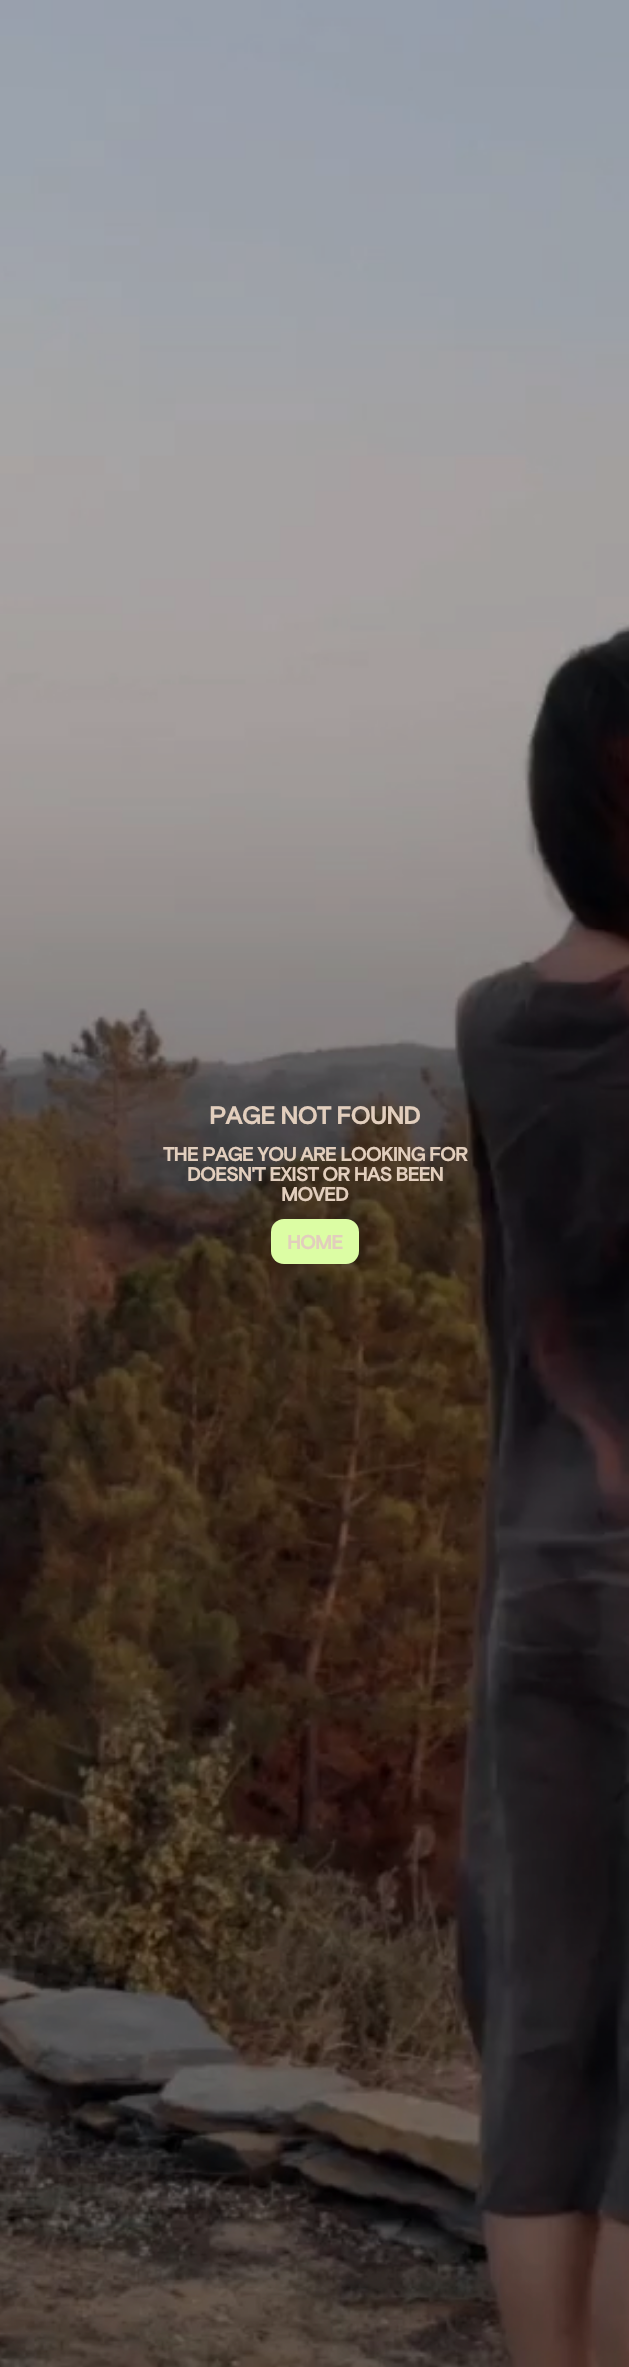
void draw(SkCanvas* canvas) {
    SkPaint paint;
    paint.setAntiAlias(true);
    auto face = [&](const char* family, int weight, float size, bool italic = false) {
        SkFontStyle style(weight, SkFontStyle::kNormal_Width,
            italic ? SkFontStyle::kItalic_Slant : SkFontStyle::kUpright_Slant);
        SkFont result(fontMgr->matchFamilyStyle(family, style), size);
        result.setSubpixel(true);
        return result;
    };
    auto writeSpaced = [&](const char* s, float x, float y, const SkFont& font, const SkPaint& ink, float letter, float word) {
        std::vector<SkGlyphID> glyphs(font.countText(s, strlen(s), SkTextEncoding::kUTF8));
        std::vector<float> xs(glyphs.size());
        font.textToGlyphs(s, strlen(s), SkTextEncoding::kUTF8, glyphs);
        font.getXPos(glyphs, xs, x);
        float extra = 0;
        for (size_t i = 0; i < glyphs.size(); i++) {
            xs[i] += extra;
            extra += letter + word * (glyphs[i] == font.unicharToGlyph(' '));
        }
        canvas->drawTextBlob(SkTextBlob::MakeFromPosHGlyphs(glyphs, xs, y, font), 0, 0, ink);
    };
    auto card = [&](float x, float y, float w, float h, float radius, SkColor color) {
        SkPaint ink(SkColor4f::FromColor(color));
        ink.setAntiAlias(true);
        canvas->drawRoundRect(SkRect::MakeXYWH(x, y, w, h), radius, radius, ink);
    };
    auto paste = [&](const char* path, float x, float y, float w, float h) {
        auto image = SkImages::DeferredFromEncodedData(SkData::MakeFromFileName(path));
        canvas->drawImageRect(image, SkRect::MakeXYWH(x, y, w, h), SkSamplingOptions());
    };
    canvas->clear(SK_ColorWHITE);
    paste("pic1.png", 0, 0, 629, 2367);
    auto kFont1 = face("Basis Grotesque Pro", 700, 25.25f);
    paint.setColor(SkColorSetRGB(226, 206, 189));
    writeSpaced("PAGE NOT FOUND", 209, 1124, kFont1, paint, -1.25f, 0);
    auto kFont2 = face("Basis Grotesque Pro", 700, 20);
    writeSpaced("THE PAGE YOU ARE LOOKING FOR", 163, 1161, kFont2, paint, -1.25f, 0);
    writeSpaced("DOESN'T EXIST OR HAS BEEN", 187, 1181, kFont2, paint, -1.25f, 0);
    writeSpaced("MOVED", 281, 1201, kFont2, paint, -1.25f, 0);
    card(271, 1219, 88, 45, 13, SkColorSetRGB(220, 253, 164));
    writeSpaced("HOME", 287, 1249, kFont2, paint, -1.25f, 0);
}
